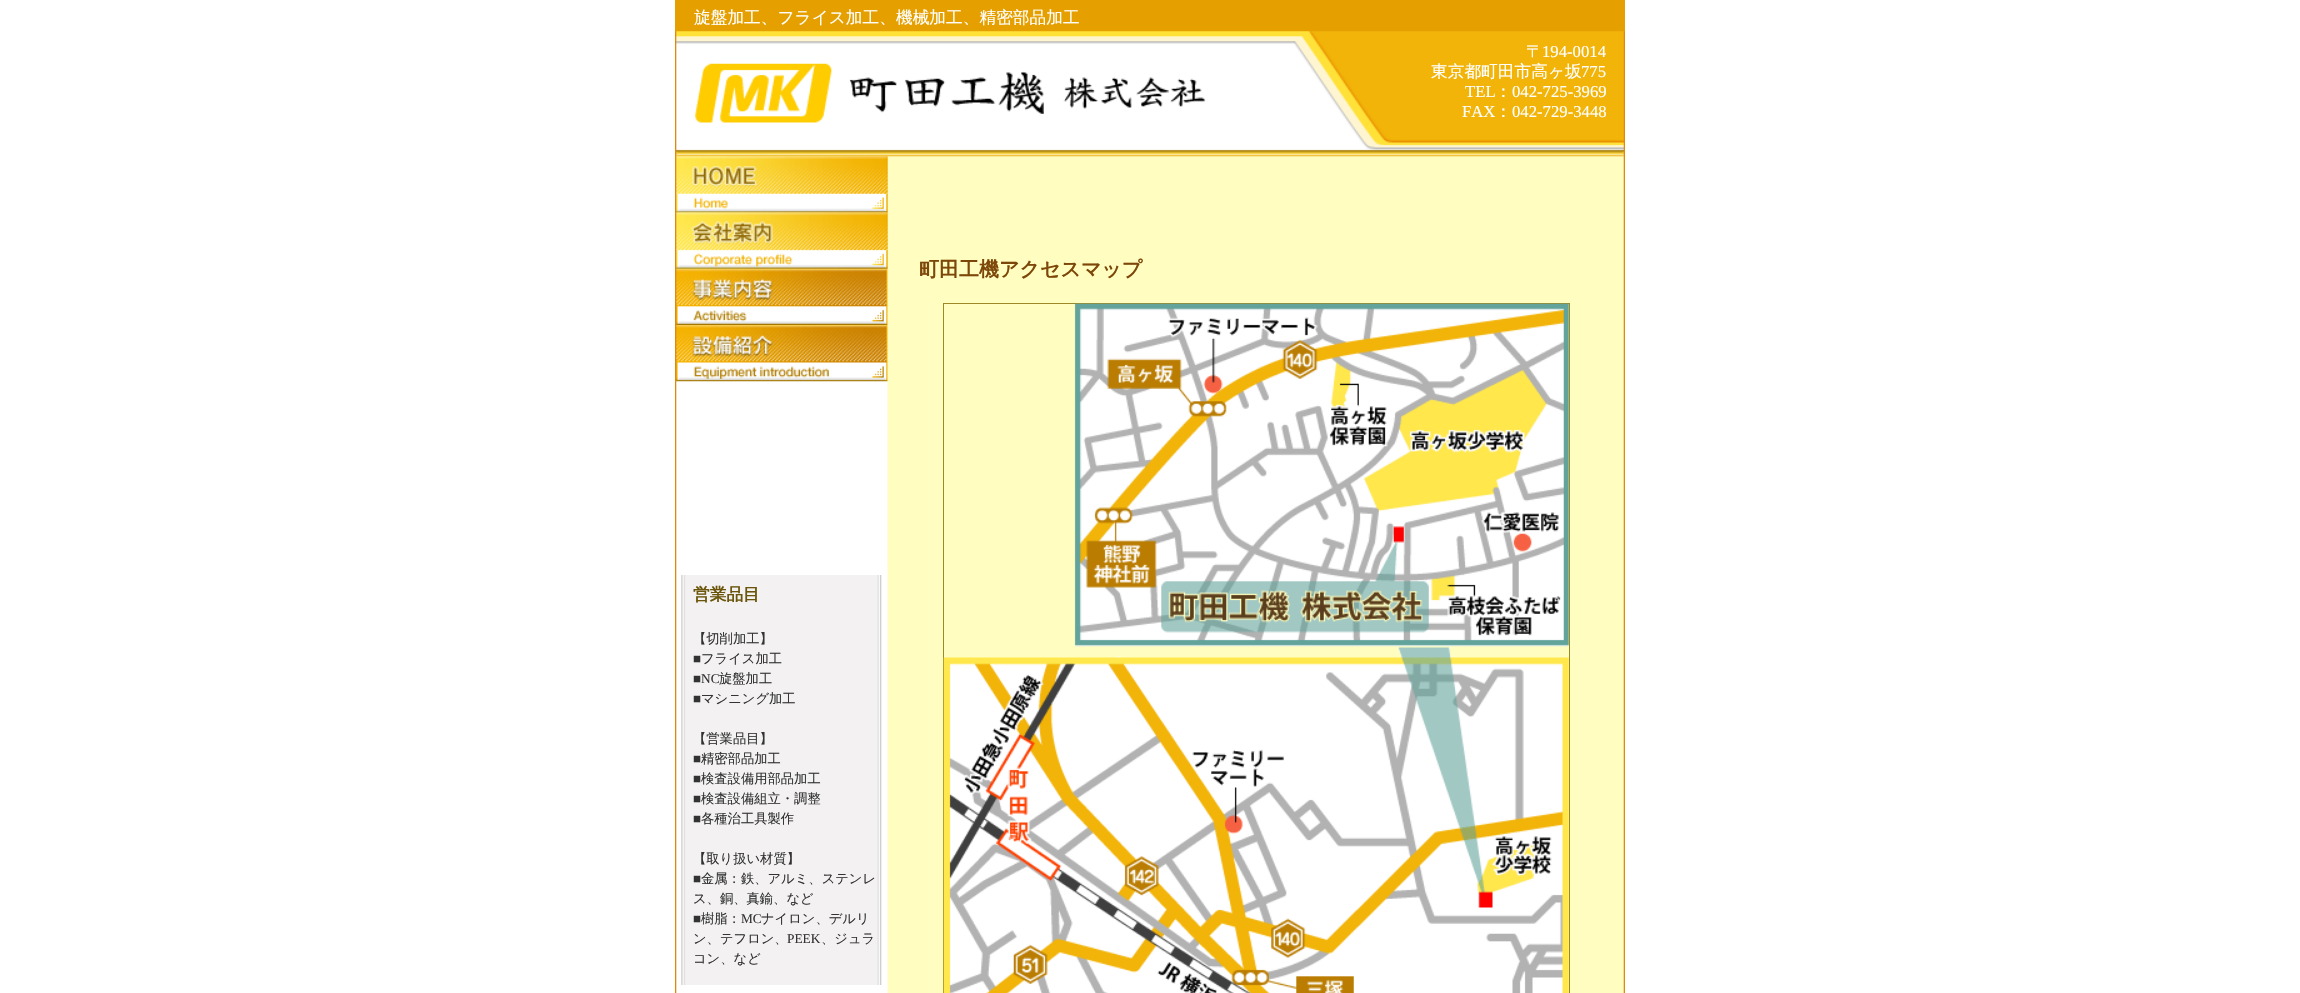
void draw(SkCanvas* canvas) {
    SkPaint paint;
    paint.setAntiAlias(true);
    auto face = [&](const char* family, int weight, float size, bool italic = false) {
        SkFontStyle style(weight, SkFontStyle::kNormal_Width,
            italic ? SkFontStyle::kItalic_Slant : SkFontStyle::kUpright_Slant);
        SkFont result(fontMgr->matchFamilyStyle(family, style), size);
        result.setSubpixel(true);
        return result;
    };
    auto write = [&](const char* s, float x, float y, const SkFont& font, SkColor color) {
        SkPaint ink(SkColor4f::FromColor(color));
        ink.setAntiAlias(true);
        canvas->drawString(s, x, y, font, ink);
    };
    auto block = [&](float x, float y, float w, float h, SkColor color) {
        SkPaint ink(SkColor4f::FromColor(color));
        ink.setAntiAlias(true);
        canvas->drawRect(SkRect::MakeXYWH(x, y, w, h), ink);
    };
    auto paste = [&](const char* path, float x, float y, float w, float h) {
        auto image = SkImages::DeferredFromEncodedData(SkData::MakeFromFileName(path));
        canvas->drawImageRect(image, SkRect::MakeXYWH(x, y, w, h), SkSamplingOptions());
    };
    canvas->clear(SK_ColorWHITE);
    block(675, 0, 950, 157, SkColorSetRGB(229, 160, 0));
    paste("pic1.png", 675, 31, 950, 126);
    auto kFont1 = face("WenQuanYi Zen Hei", 500, 16.7f);
    write("旋盤加工、フライス加工、機械加工、精密部品加工", 694, 23, kFont1, SK_ColorWHITE);
    paste("pic2.png", 694, 63, 512, 60);
    write("〒", 1526, 57, kFont1, SK_ColorWHITE);
    auto kFont2 = face("Liberation Serif", 400, 16.7f);
    write("194-0014", 1542, 57, kFont2, SK_ColorWHITE);
    write("東京都町田市高ヶ坂", 1431, 77, kFont1, SK_ColorWHITE);
    write("775", 1581, 77, kFont2, SK_ColorWHITE);
    write("TEL", 1465, 97, kFont2, SK_ColorWHITE);
    write("：", 1495, 97, kFont1, SK_ColorWHITE);
    write("042-725-3969", 1512, 97, kFont2, SK_ColorWHITE);
    write("FAX", 1462, 117, kFont2, SK_ColorWHITE);
    write("：", 1495, 117, kFont1, SK_ColorWHITE);
    write("042-729-3448", 1512, 117, kFont2, SK_ColorWHITE);
    paste("pic3.png", 675, 156, 950, 837);
    auto kFont3 = face("WenQuanYi Zen Hei", 700, 20);
    write("町田工機アクセスマップ", 919, 276, kFont3, SkColorSetRGB(124, 71, 8));
    paint.setStyle(SkPaint::kStroke_Style);
    paint.setStrokeWidth(1);
    paint.setColor(SkColorSetRGB(155, 137, 38));
    canvas->drawRect(SkRect::MakeXYWH(943.5f, 303.5f, 626, 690), paint);
    paste("pic4.png", 943, 303, 626, 690);
    paste("pic5.png", 676, 156, 212, 57);
    paste("pic6.png", 676, 156, 212, 57);
    paste("pic7.png", 676, 212, 212, 57);
    paste("pic8.png", 676, 212, 212, 57);
    paste("pic9.png", 676, 268, 212, 57);
    paste("pic10.png", 676, 325, 212, 57);
    paste("pic11.png", 681, 575, 201, 410);
    auto kFont4 = face("WenQuanYi Zen Hei", 700, 16.7f);
    write("営業品目", 693, 600, kFont4, SkColorSetRGB(106, 85, 11));
    auto kFont5 = face("WenQuanYi Zen Hei", 500, 13.3f);
    write("【切削加工】", 693, 643, kFont5, SkColorSetRGB(51, 51, 51));
    auto kFont6 = face("Liberation Serif", 400, 13.3f);
    write("■", 693, 663, kFont6, SkColorSetRGB(51, 51, 51));
    write("フライス加工", 701, 663, kFont5, SkColorSetRGB(51, 51, 51));
    write("■NC", 693, 683, kFont6, SkColorSetRGB(51, 51, 51));
    write("旋盤加工", 719, 683, kFont5, SkColorSetRGB(51, 51, 51));
    write("■", 693, 703, kFont6, SkColorSetRGB(51, 51, 51));
    write("マシニング加工", 701, 703, kFont5, SkColorSetRGB(51, 51, 51));
    write("【営業品目】", 693, 743, kFont5, SkColorSetRGB(51, 51, 51));
    write("■", 693, 763, kFont6, SkColorSetRGB(51, 51, 51));
    write("精密部品加工", 701, 763, kFont5, SkColorSetRGB(51, 51, 51));
    write("■", 693, 783, kFont6, SkColorSetRGB(51, 51, 51));
    write("検査設備用部品加工", 701, 783, kFont5, SkColorSetRGB(51, 51, 51));
    write("■", 693, 803, kFont6, SkColorSetRGB(51, 51, 51));
    write("検査設備組立・調整", 701, 803, kFont5, SkColorSetRGB(51, 51, 51));
    write("■", 693, 823, kFont6, SkColorSetRGB(51, 51, 51));
    write("各種治工具製作", 701, 823, kFont5, SkColorSetRGB(51, 51, 51));
    write("【取り扱い材質】", 693, 863, kFont5, SkColorSetRGB(51, 51, 51));
    write("■", 693, 883, kFont6, SkColorSetRGB(51, 51, 51));
    write("金属：鉄、アルミ、ステンレ", 701, 883, kFont5, SkColorSetRGB(51, 51, 51));
    write("ス、銅、真鍮、など", 693, 903, kFont5, SkColorSetRGB(51, 51, 51));
    write("■", 693, 923, kFont6, SkColorSetRGB(51, 51, 51));
    write("樹脂：", 701, 923, kFont5, SkColorSetRGB(51, 51, 51));
    write("MC", 741, 923, kFont6, SkColorSetRGB(51, 51, 51));
    write("ナイロン、デルリ", 761, 923, kFont5, SkColorSetRGB(51, 51, 51));
    write("ン、テフロン、", 693, 943, kFont5, SkColorSetRGB(51, 51, 51));
    write("PEEK", 787, 943, kFont6, SkColorSetRGB(51, 51, 51));
    write("、ジュラ", 821, 943, kFont5, SkColorSetRGB(51, 51, 51));
    write("コン、など", 693, 963, kFont5, SkColorSetRGB(51, 51, 51));
}
